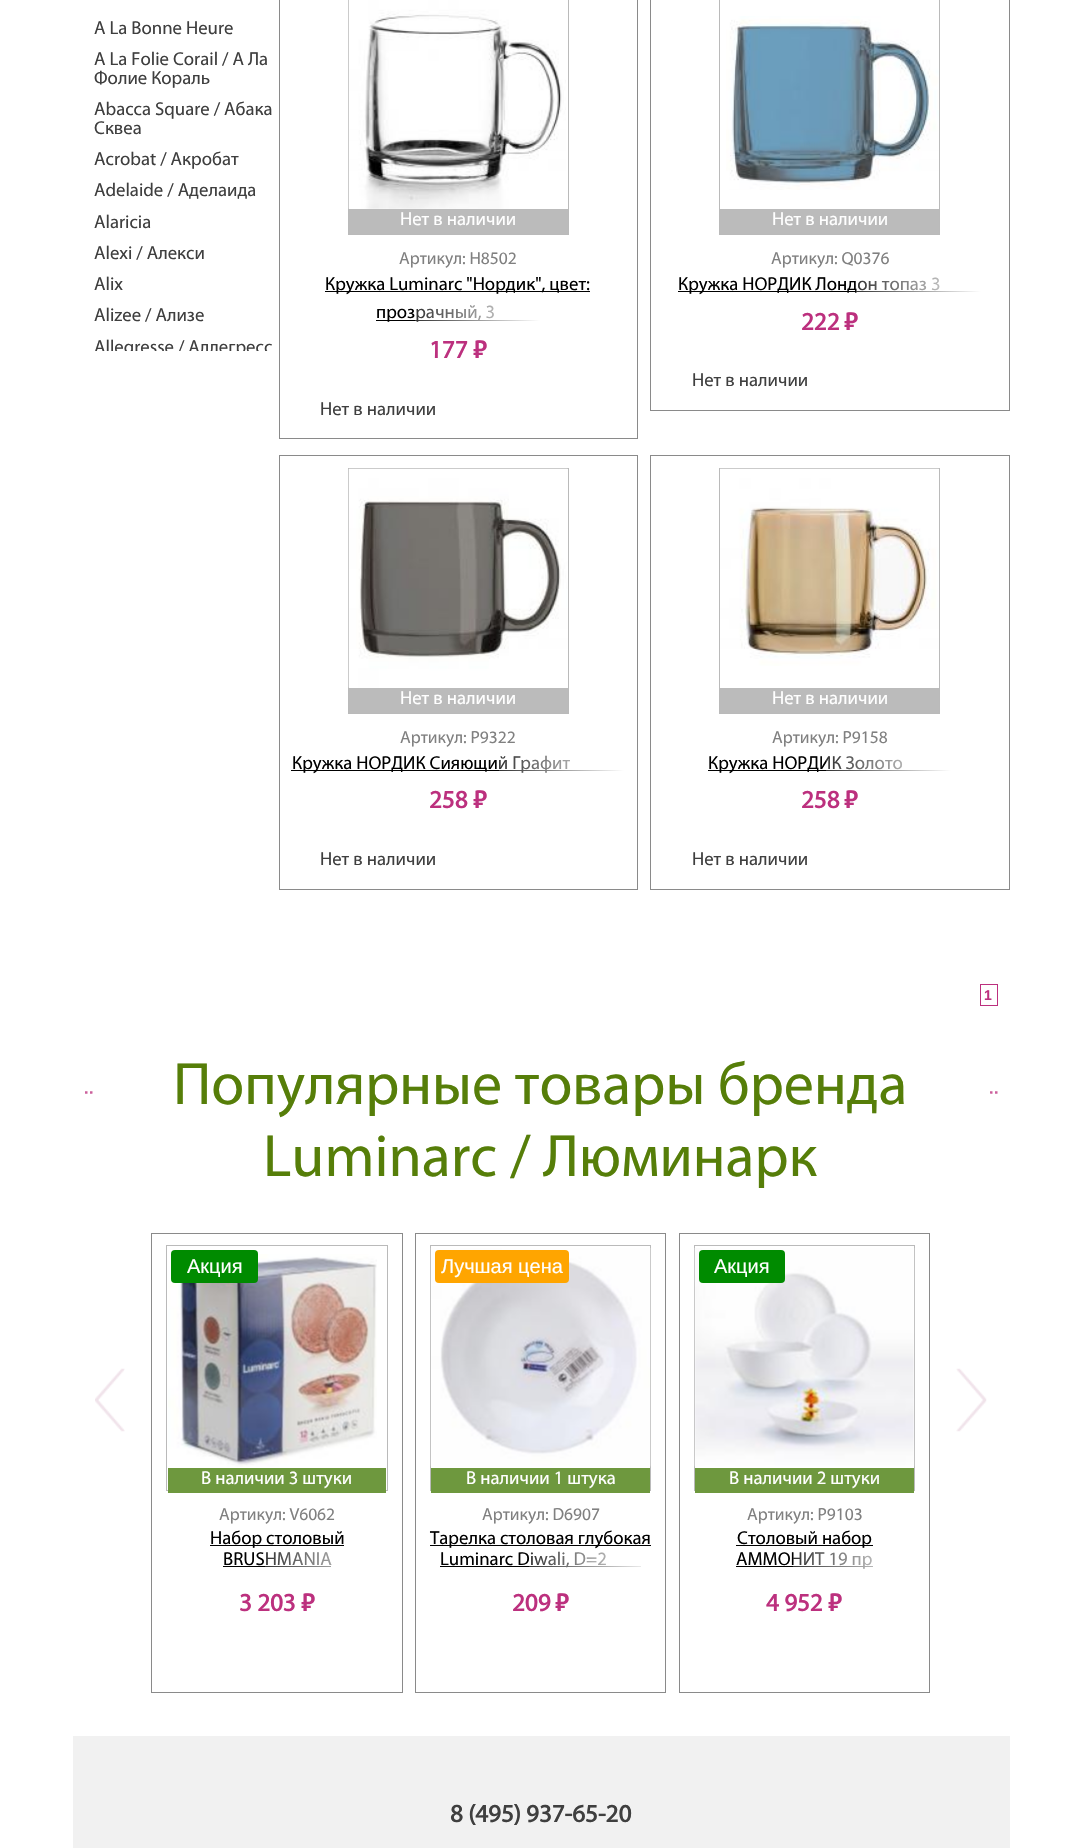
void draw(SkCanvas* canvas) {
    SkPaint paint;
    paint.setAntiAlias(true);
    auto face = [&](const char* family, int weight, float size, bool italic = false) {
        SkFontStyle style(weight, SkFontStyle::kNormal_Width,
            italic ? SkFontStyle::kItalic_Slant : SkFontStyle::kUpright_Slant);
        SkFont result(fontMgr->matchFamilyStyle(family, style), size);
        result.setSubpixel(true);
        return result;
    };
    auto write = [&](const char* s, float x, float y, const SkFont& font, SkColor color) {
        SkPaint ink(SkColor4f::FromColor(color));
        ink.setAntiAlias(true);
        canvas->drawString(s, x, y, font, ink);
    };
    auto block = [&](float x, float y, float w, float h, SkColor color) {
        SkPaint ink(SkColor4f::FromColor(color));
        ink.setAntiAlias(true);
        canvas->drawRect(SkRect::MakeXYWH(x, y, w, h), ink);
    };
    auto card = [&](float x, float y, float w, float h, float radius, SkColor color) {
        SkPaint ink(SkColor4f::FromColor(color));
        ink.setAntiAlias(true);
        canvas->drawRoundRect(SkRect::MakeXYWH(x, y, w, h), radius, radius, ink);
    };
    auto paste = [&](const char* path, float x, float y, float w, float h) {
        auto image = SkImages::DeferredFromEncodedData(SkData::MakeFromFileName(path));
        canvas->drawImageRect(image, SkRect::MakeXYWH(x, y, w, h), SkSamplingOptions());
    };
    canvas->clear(SK_ColorWHITE);
    auto kFont1 = face("Myriad", 400, 18.75f);
    write("A La Bonne Heure", 94, 34, kFont1, SkColorSetRGB(63, 63, 63));
    write("A La Folie Corail / А Ла", 94, 65, kFont1, SkColorSetRGB(63, 63, 63));
    write("Фолие Кораль", 94, 84, kFont1, SkColorSetRGB(63, 63, 63));
    write("Abacca Square / Абака", 94, 115, kFont1, SkColorSetRGB(63, 63, 63));
    write("Сквеа", 94, 134, kFont1, SkColorSetRGB(63, 63, 63));
    write("Acrobat / Акробат", 94, 165, kFont1, SkColorSetRGB(63, 63, 63));
    write("Adelaide / Аделаида", 94, 196, kFont1, SkColorSetRGB(63, 63, 63));
    write("Alaricia", 94, 228, kFont1, SkColorSetRGB(63, 63, 63));
    write("Alexi / Алекси", 94, 259, kFont1, SkColorSetRGB(63, 63, 63));
    write("Alix", 94, 290, kFont1, SkColorSetRGB(63, 63, 63));
    write("Alizee / Ализе", 94, 321, kFont1, SkColorSetRGB(63, 63, 63));
    canvas->save();
    canvas->clipRect(SkRect::MakeXYWH(85, 0, 195, 351));
    write("Allegresse / Аллегресс", 94, 353, kFont1, SkColorSetRGB(63, 63, 63));
    canvas->restore();
    paint.setStyle(SkPaint::kStroke_Style);
    paint.setStrokeWidth(1);
    paint.setColor(SkColorSetRGB(138, 138, 138));
    canvas->drawRect(SkRect::MakeXYWH(279.5f, -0.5f, 358, 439), paint);
    paint.setColor(SkColorSetRGB(186, 186, 186));
    canvas->drawRect(SkRect::MakeXYWH(348.5f, -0.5f, 220, 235), paint);
    paste("pic1.png", 348, 0, 218, 209);
    block(349, 209, 219, 25, SkColorSetRGB(187, 187, 187));
    write("Нет в наличии", 400, 225, kFont1, SK_ColorWHITE);
    auto kFont2 = face("Myriad", 400, 17.5f);
    write("Артикул: H8502", 399, 264, kFont2, SkColorSetRGB(128, 128, 128));
    block(325, 291, 265, 1, SK_ColorBLACK);
    write("Кружка Luminarc \"Нордик\", цвет:", 325, 290, kFont1, SK_ColorBLACK);
    block(376, 320, 164, 1, SK_ColorBLACK);
    write("прозрачный, 3", 376, 318, kFont1, SK_ColorBLACK);
    paint.setStyle(SkPaint::kFill_Style);
    {
        const SkColor colors[] = {SK_ColorWHITE, SkColorSetARGB(51, 255, 255, 255)};
        const float stops[] = {0, 1};
        const SkPoint ends[] = {{540, 313}, {415, 313}};
        paint.setShader(SkGradientShader::MakeLinear(ends, colors, stops, 2, SkTileMode::kClamp));
        paint.setAlpha(255);
    }
    canvas->drawRect(SkRect::MakeXYWH(415, 305, 125, 17), paint);
    auto kFont3 = face("Myriad", 700, 25);
    write("177", 429, 358, kFont3, SkColorSetRGB(188, 48, 126));
    auto kFont4 = face("PT Sans", 700, 25);
    write("₽", 473, 358, kFont4, SkColorSetRGB(188, 48, 126));
    write("Нет в наличии", 320, 415, kFont1, SkColorSetRGB(63, 63, 63));
    paint.setStyle(SkPaint::kStroke_Style);
    paint.setShader(nullptr);
    paint.setColor(SkColorSetRGB(138, 138, 138));
    canvas->drawRect(SkRect::MakeXYWH(650.5f, -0.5f, 359, 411), paint);
    paint.setColor(SkColorSetRGB(186, 186, 186));
    canvas->drawRect(SkRect::MakeXYWH(719.5f, -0.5f, 220, 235), paint);
    paste("pic2.png", 726, 16, 213, 174);
    block(720, 209, 219, 25, SkColorSetRGB(187, 187, 187));
    write("Нет в наличии", 772, 225, kFont1, SK_ColorWHITE);
    write("Артикул: Q0376", 771, 264, kFont2, SkColorSetRGB(128, 128, 128));
    block(678, 291, 303, 1, SK_ColorBLACK);
    write("Кружка НОРДИК Лондон топаз 3", 678, 290, kFont1, SK_ColorBLACK);
    paint.setStyle(SkPaint::kFill_Style);
    {
        const SkColor colors[] = {SK_ColorWHITE, SkColorSetARGB(51, 255, 255, 255)};
        const float stops[] = {0, 1};
        const SkPoint ends[] = {{981, 284}, {856, 284}};
        paint.setShader(SkGradientShader::MakeLinear(ends, colors, stops, 2, SkTileMode::kClamp));
        paint.setAlpha(255);
    }
    canvas->drawRect(SkRect::MakeXYWH(856, 277, 125, 16), paint);
    write("222", 801, 330, kFont3, SkColorSetRGB(188, 48, 126));
    write("₽", 844, 330, kFont4, SkColorSetRGB(188, 48, 126));
    write("Нет в наличии", 692, 386, kFont1, SkColorSetRGB(63, 63, 63));
    paint.setStyle(SkPaint::kStroke_Style);
    paint.setShader(nullptr);
    paint.setColor(SkColorSetRGB(138, 138, 138));
    canvas->drawRect(SkRect::MakeXYWH(279.5f, 455.5f, 358, 434), paint);
    paint.setColor(SkColorSetRGB(186, 186, 186));
    canvas->drawRect(SkRect::MakeXYWH(348.5f, 468.5f, 220, 245), paint);
    paste("pic3.png", 348, 468, 220, 220);
    block(349, 688, 219, 25, SkColorSetRGB(187, 187, 187));
    write("Нет в наличии", 400, 704, kFont1, SK_ColorWHITE);
    write("Артикул: P9322", 400, 743, kFont2, SkColorSetRGB(128, 128, 128));
    block(291, 770, 333, 1, SK_ColorBLACK);
    write("Кружка НОРДИК Сияющий Графит", 292, 769, kFont1, SK_ColorBLACK);
    paint.setStyle(SkPaint::kFill_Style);
    {
        const SkColor colors[] = {SK_ColorWHITE, SkColorSetARGB(51, 255, 255, 255)};
        const float stops[] = {0, 1};
        const SkPoint ends[] = {{624, 763}, {499, 763}};
        paint.setShader(SkGradientShader::MakeLinear(ends, colors, stops, 2, SkTileMode::kClamp));
        paint.setAlpha(255);
    }
    canvas->drawRect(SkRect::MakeXYWH(499, 755, 125, 18), paint);
    write("258", 429, 808, kFont3, SkColorSetRGB(188, 48, 126));
    write("₽", 473, 808, kFont4, SkColorSetRGB(188, 48, 126));
    write("Нет в наличии", 320, 865, kFont1, SkColorSetRGB(63, 63, 63));
    paint.setStyle(SkPaint::kStroke_Style);
    paint.setShader(nullptr);
    paint.setColor(SkColorSetRGB(138, 138, 138));
    canvas->drawRect(SkRect::MakeXYWH(650.5f, 455.5f, 359, 434), paint);
    paint.setColor(SkColorSetRGB(186, 186, 186));
    canvas->drawRect(SkRect::MakeXYWH(719.5f, 468.5f, 220, 245), paint);
    paste("pic4.png", 720, 468, 219, 198);
    block(720, 688, 219, 25, SkColorSetRGB(187, 187, 187));
    write("Нет в наличии", 772, 704, kFont1, SK_ColorWHITE);
    write("Артикул: P9158", 772, 743, kFont2, SkColorSetRGB(128, 128, 128));
    block(708, 770, 243, 1, SK_ColorBLACK);
    write("Кружка НОРДИК Золото", 708, 769, kFont1, SK_ColorBLACK);
    paint.setStyle(SkPaint::kFill_Style);
    {
        const SkColor colors[] = {SK_ColorWHITE, SkColorSetARGB(51, 255, 255, 255)};
        const float stops[] = {0, 1};
        const SkPoint ends[] = {{951, 763}, {826, 763}};
        paint.setShader(SkGradientShader::MakeLinear(ends, colors, stops, 2, SkTileMode::kClamp));
        paint.setAlpha(255);
    }
    canvas->drawRect(SkRect::MakeXYWH(826, 756, 125, 15), paint);
    write("258", 801, 808, kFont3, SkColorSetRGB(188, 48, 126));
    write("₽", 844, 808, kFont4, SkColorSetRGB(188, 48, 126));
    write("Нет в наличии", 692, 865, kFont1, SkColorSetRGB(63, 63, 63));
    paint.setStyle(SkPaint::kStroke_Style);
    paint.setShader(nullptr);
    paint.setColor(SkColorSetRGB(188, 48, 126));
    canvas->drawRect(SkRect::MakeXYWH(980.5f, 984.5f, 17, 21), paint);
    auto kFont5 = face("Liberation Sans", 700, 14);
    write("1", 984, 1000, kFont5, SkColorSetRGB(188, 48, 126));
    paint.setStrokeWidth(2.5f);
    paint.setColor(SkColorSetRGB(204, 96, 156));
    paint.setPathEffect(SkDashPathEffect::Make({{2.5f, 2.5f}}, 0));
    canvas->drawPath(SkPathBuilder().moveTo(85, 1092.5f).lineTo(997.5f, 1092.5f).detach(), paint);
    paint.setPathEffect(nullptr);
    card(85, 1054, 913, 144, 72, SK_ColorWHITE);
    auto kFont6 = face("Myriad", 400, 60);
    write("Популярные товары бренда", 173, 1104, kFont6, SkColorSetRGB(86, 126, 9));
    write("Luminarc / Люминарк", 263, 1176, kFont6, SkColorSetRGB(86, 126, 9));
    paste("pic5.png", 95, 1368, 30, 64);
    paint.setStrokeWidth(1);
    paint.setColor(SkColorSetRGB(138, 138, 138));
    canvas->drawRect(SkRect::MakeXYWH(151.5f, 1233.5f, 251, 459), paint);
    paint.setColor(SkColorSetRGB(186, 186, 186));
    canvas->drawRect(SkRect::MakeXYWH(166.5f, 1245.5f, 221, 245), paint);
    paste("pic6.png", 168, 1254, 209, 213);
    card(171, 1250, 87, 33, 4, SkColorSetRGB(0, 139, 0));
    auto kFont7 = face("Liberation Sans", 400, 20);
    write("Акция", 187, 1273, kFont7, SK_ColorWHITE);
    block(168, 1468, 218, 25, SkColorSetRGB(110, 152, 62));
    write("В наличии 3 штуки", 201, 1484, kFont1, SK_ColorWHITE);
    write("Артикул: V6062", 219, 1520, kFont2, SkColorSetRGB(128, 128, 128));
    block(210, 1545, 134, 1, SK_ColorBLACK);
    write("Набор столовый", 210, 1544, kFont1, SK_ColorBLACK);
    write("BRUSHMANIA", 223, 1565, kFont1, SK_ColorBLACK);
    block(223, 1566, 108, 1, SK_ColorBLACK);
    paint.setStyle(SkPaint::kFill_Style);
    {
        const SkColor colors[] = {SK_ColorWHITE, SkColorSetARGB(51, 255, 255, 255)};
        const float stops[] = {0, 1};
        const SkPoint ends[] = {{390, 1561}, {265, 1561}};
        paint.setShader(SkGradientShader::MakeLinear(ends, colors, stops, 2, SkTileMode::kClamp));
        paint.setAlpha(255);
    }
    canvas->drawRect(SkRect::MakeXYWH(265, 1552, 66, 15), paint);
    write("3 203", 239, 1611, kFont3, SkColorSetRGB(188, 48, 126));
    write("₽", 301, 1611, kFont4, SkColorSetRGB(188, 48, 126));
    paint.setStyle(SkPaint::kStroke_Style);
    paint.setShader(nullptr);
    paint.setColor(SkColorSetRGB(138, 138, 138));
    canvas->drawRect(SkRect::MakeXYWH(415.5f, 1233.5f, 250, 459), paint);
    paint.setColor(SkColorSetRGB(186, 186, 186));
    canvas->drawRect(SkRect::MakeXYWH(430.5f, 1245.5f, 220, 245), paint);
    paste("pic7.png", 430, 1248, 221, 219);
    card(435, 1250, 134, 33, 4, SkColorSetRGB(255, 165, 0));
    write("Лучшая цена", 441, 1273, kFont7, SK_ColorWHITE);
    block(431, 1468, 219, 25, SkColorSetRGB(110, 152, 62));
    write("В наличии 1 штука", 466, 1484, kFont1, SK_ColorWHITE);
    write("Артикул: D6907", 482, 1520, kFont2, SkColorSetRGB(128, 128, 128));
    block(430, 1545, 221, 1, SK_ColorBLACK);
    write("Тарелка столовая глубокая", 430, 1544, kFont1, SK_ColorBLACK);
    block(440, 1566, 201, 1, SK_ColorBLACK);
    write("Luminarc Diwali, D=2", 440, 1565, kFont1, SK_ColorBLACK);
    paint.setStyle(SkPaint::kFill_Style);
    {
        const SkColor colors[] = {SK_ColorWHITE, SkColorSetARGB(51, 255, 255, 255)};
        const float stops[] = {0, 1};
        const SkPoint ends[] = {{654, 1561}, {529, 1561}};
        paint.setShader(SkGradientShader::MakeLinear(ends, colors, stops, 2, SkTileMode::kClamp));
        paint.setAlpha(255);
    }
    canvas->drawRect(SkRect::MakeXYWH(529, 1551, 112, 17), paint);
    write("209", 512, 1611, kFont3, SkColorSetRGB(188, 48, 126));
    write("₽", 555, 1611, kFont4, SkColorSetRGB(188, 48, 126));
    paint.setStyle(SkPaint::kStroke_Style);
    paint.setShader(nullptr);
    paint.setColor(SkColorSetRGB(138, 138, 138));
    canvas->drawRect(SkRect::MakeXYWH(679.5f, 1233.5f, 250, 459), paint);
    paint.setColor(SkColorSetRGB(186, 186, 186));
    canvas->drawRect(SkRect::MakeXYWH(694.5f, 1245.5f, 220, 245), paint);
    paste("pic8.png", 694, 1248, 221, 219);
    card(699, 1250, 86, 33, 4, SkColorSetRGB(0, 139, 0));
    write("Акция", 714, 1273, kFont7, SK_ColorWHITE);
    block(695, 1468, 219, 25, SkColorSetRGB(110, 152, 62));
    write("В наличии 2 штуки", 729, 1484, kFont1, SK_ColorWHITE);
    write("Артикул: P9103", 747, 1520, kFont2, SkColorSetRGB(128, 128, 128));
    block(736, 1545, 137, 1, SK_ColorBLACK);
    write("Столовый набор", 737, 1544, kFont1, SK_ColorBLACK);
    block(736, 1566, 137, 1, SK_ColorBLACK);
    write("АММОНИТ 19 пр", 736, 1565, kFont1, SK_ColorBLACK);
    paint.setStyle(SkPaint::kFill_Style);
    {
        const SkColor colors[] = {SK_ColorWHITE, SkColorSetARGB(51, 255, 255, 255)};
        const float stops[] = {0, 1};
        const SkPoint ends[] = {{918, 1561}, {793, 1561}};
        paint.setShader(SkGradientShader::MakeLinear(ends, colors, stops, 2, SkTileMode::kClamp));
        paint.setAlpha(255);
    }
    canvas->drawRect(SkRect::MakeXYWH(793, 1552, 80, 17), paint);
    write("4 952", 766, 1611, kFont3, SkColorSetRGB(188, 48, 126));
    write("₽", 828, 1611, kFont4, SkColorSetRGB(188, 48, 126));
    paste("pic9.png", 956, 1368, 31, 64);
    block(73, 1736, 937, 112, SkColorSetRGB(241, 241, 241));
    write("8 (495) 937-65-20", 450, 1822, kFont3, SkColorSetRGB(63, 63, 63));
}
